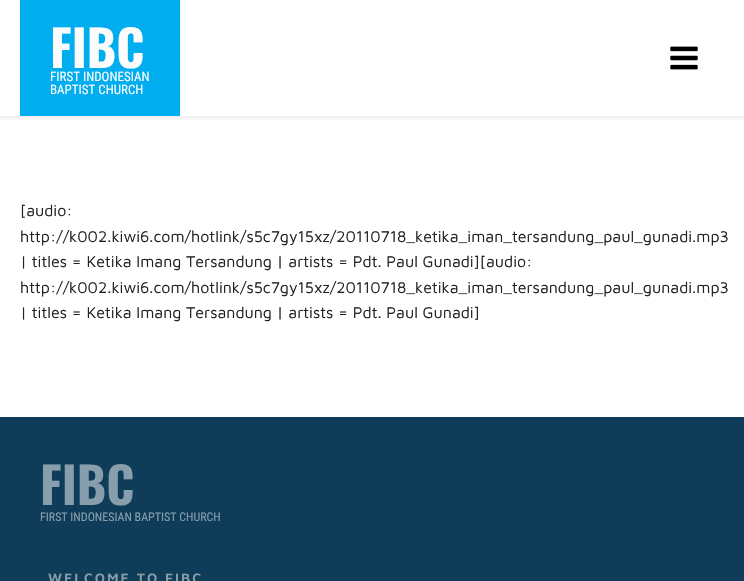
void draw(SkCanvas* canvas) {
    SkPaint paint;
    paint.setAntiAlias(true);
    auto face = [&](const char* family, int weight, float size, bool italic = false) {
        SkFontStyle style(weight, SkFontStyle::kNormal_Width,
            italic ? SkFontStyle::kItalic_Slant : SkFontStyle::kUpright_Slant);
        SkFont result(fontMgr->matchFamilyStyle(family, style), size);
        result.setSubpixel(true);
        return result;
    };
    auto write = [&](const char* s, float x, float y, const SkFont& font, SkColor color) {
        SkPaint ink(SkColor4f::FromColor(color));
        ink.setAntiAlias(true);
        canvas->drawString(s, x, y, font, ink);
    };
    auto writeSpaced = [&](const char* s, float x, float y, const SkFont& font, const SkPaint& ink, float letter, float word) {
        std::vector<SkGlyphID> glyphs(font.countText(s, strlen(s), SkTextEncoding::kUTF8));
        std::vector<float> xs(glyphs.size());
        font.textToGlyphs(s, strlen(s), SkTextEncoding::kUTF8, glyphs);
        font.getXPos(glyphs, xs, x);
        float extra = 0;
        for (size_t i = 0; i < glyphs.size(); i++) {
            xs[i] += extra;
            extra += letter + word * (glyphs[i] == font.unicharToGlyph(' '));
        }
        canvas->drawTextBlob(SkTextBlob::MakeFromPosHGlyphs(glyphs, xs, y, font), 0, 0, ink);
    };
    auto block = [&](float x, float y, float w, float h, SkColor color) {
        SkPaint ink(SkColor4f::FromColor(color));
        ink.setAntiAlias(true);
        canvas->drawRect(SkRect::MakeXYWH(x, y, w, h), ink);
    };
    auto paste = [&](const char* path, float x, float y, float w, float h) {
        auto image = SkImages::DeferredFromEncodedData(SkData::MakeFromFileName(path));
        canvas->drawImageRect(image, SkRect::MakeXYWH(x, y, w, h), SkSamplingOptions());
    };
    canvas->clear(SK_ColorWHITE);
    canvas->save();
    canvas->clipRect(SkRect::MakeXYWH(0, 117, 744, 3));
    paint.setColor(SkColorSetARGB(26, 0, 0, 0));
    paint.setMaskFilter(SkMaskFilter::MakeBlur(kNormal_SkBlurStyle, 4));
    canvas->drawRect(SkRect::MakeXYWH(0, 0, 744, 117), paint);
    paint.setMaskFilter(nullptr);
    canvas->restore();
    block(0, 116, 744, 1, SkColorSetRGB(238, 238, 238));
    block(20, 0, 160, 116, SkColorSetRGB(0, 173, 239));
    auto kFont1 = face("Oswald", 700, 50);
    write("FIBC", 50, 68, kFont1, SkColorSetRGB(252, 252, 252));
    auto kFont2 = face("Roboto Condensed", 400, 13);
    write("FIRST INDONESIAN", 50, 81, kFont2, SkColorSetRGB(252, 252, 252));
    write("BAPTIST CHURCH", 50, 94, kFont2, SkColorSetRGB(252, 252, 252));
    paste("pic1.png", 670, 46, 28, 24);
    auto kFont3 = face("Maven Pro", 400, 16);
    write("[audio:", 20, 216, kFont3, SkColorSetRGB(34, 34, 34));
    write("http://k002.kiwi6.com/hotlink/s5c7gy15xz/20110718_ketika_iman_tersandung_paul_gunadi.mp3", 20, 242, kFont3, SkColorSetRGB(34, 34, 34));
    write("| titles = Ketika Imang Tersandung | artists = Pdt. Paul Gunadi][audio:", 20, 267, kFont3, SkColorSetRGB(34, 34, 34));
    write("http://k002.kiwi6.com/hotlink/s5c7gy15xz/20110718_ketika_iman_tersandung_paul_gunadi.mp3", 20, 293, kFont3, SkColorSetRGB(34, 34, 34));
    write("| titles = Ketika Imang Tersandung | artists = Pdt. Paul Gunadi]", 20, 318, kFont3, SkColorSetRGB(34, 34, 34));
    block(0, 417, 744, 164, SkColorSetRGB(15, 61, 89));
    write("FIBC", 40, 505, kFont1, SkColorSetRGB(135, 158, 172));
    auto kFont4 = face("Roboto Condensed", 400, 12);
    write("FIRST INDONESIAN BAPTIST CHURCH", 40, 521, kFont4, SkColorSetRGB(135, 158, 172));
    auto kFont5 = face("Maven Pro", 600, 14);
    paint.setColor(SkColorSetRGB(135, 158, 172));
    writeSpaced("WELCOME TO FIBC", 48, 583, kFont5, paint, 2, 0);
}
